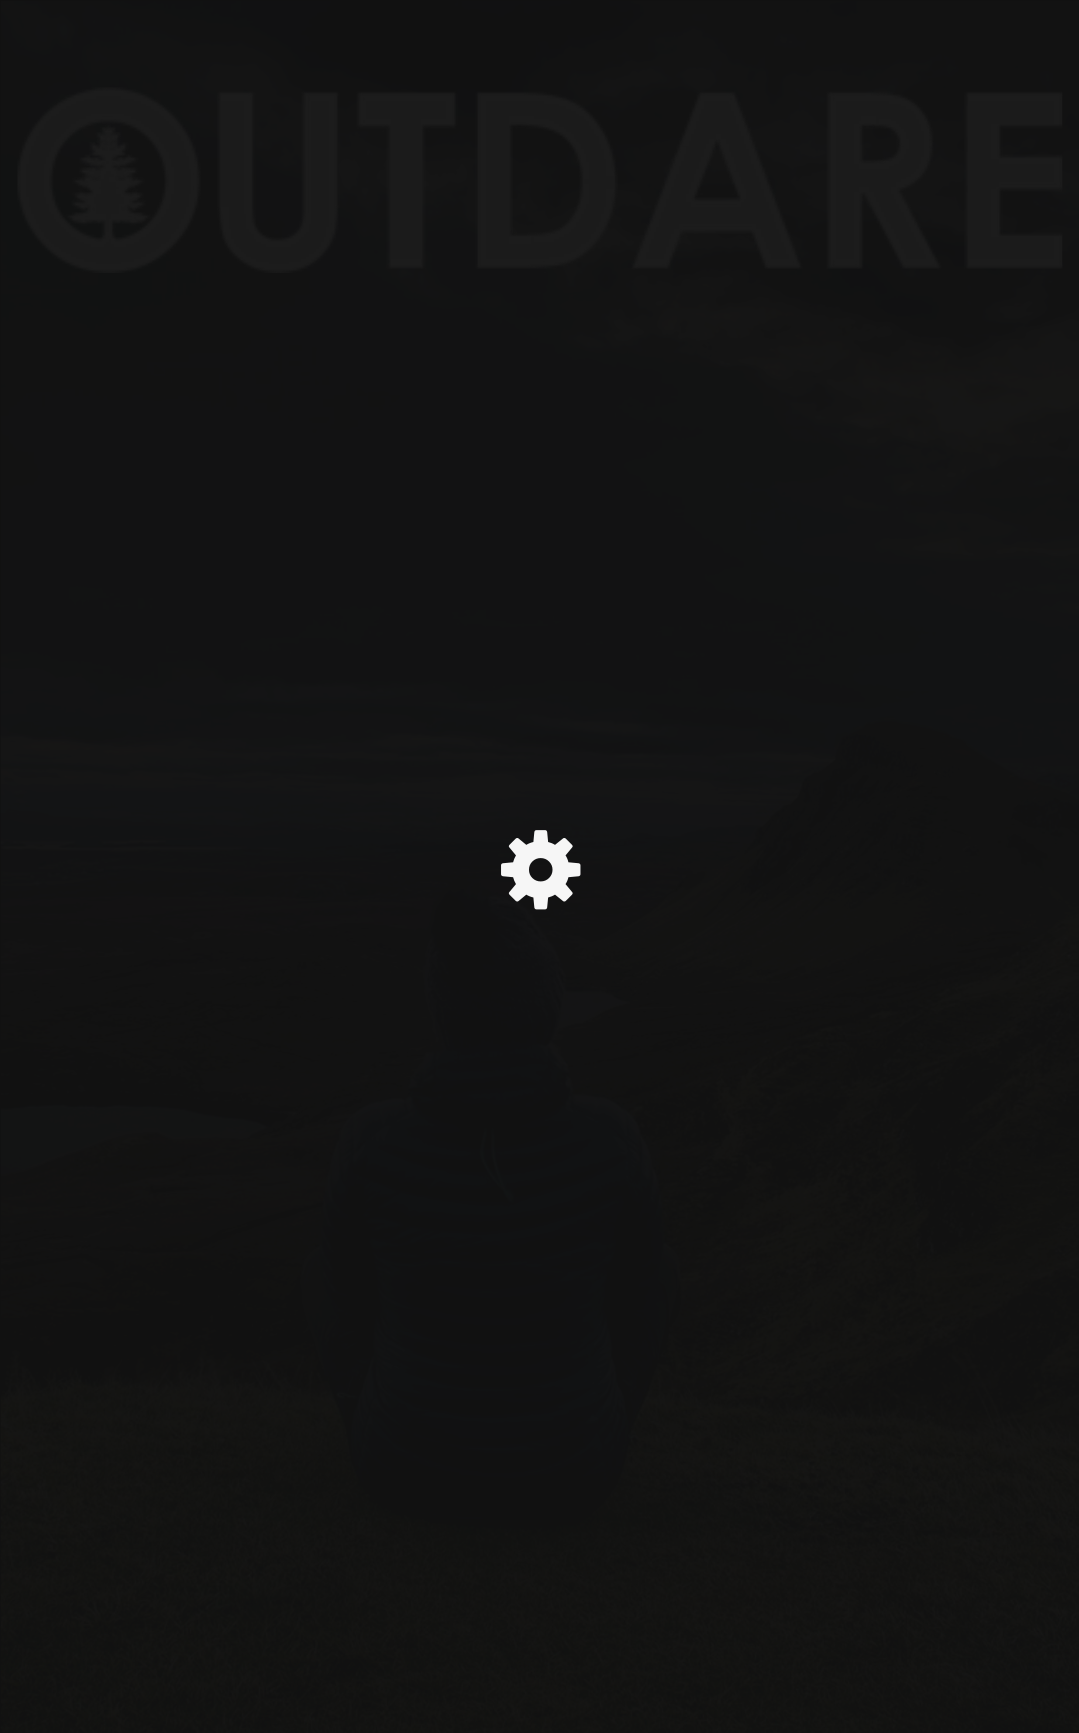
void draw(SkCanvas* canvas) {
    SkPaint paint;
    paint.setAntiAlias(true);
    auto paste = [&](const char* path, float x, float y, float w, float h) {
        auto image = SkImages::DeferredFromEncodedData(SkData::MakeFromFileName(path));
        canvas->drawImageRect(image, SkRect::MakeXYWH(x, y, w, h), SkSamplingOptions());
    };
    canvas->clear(SkColorSetRGB(17, 17, 17));
    paste("pic1.png", 0, 0, 1079, 1733);
    paste("pic2.png", 17, 87, 1046, 186);
    paste("pic3.png", 501, 830, 80, 80);
}
